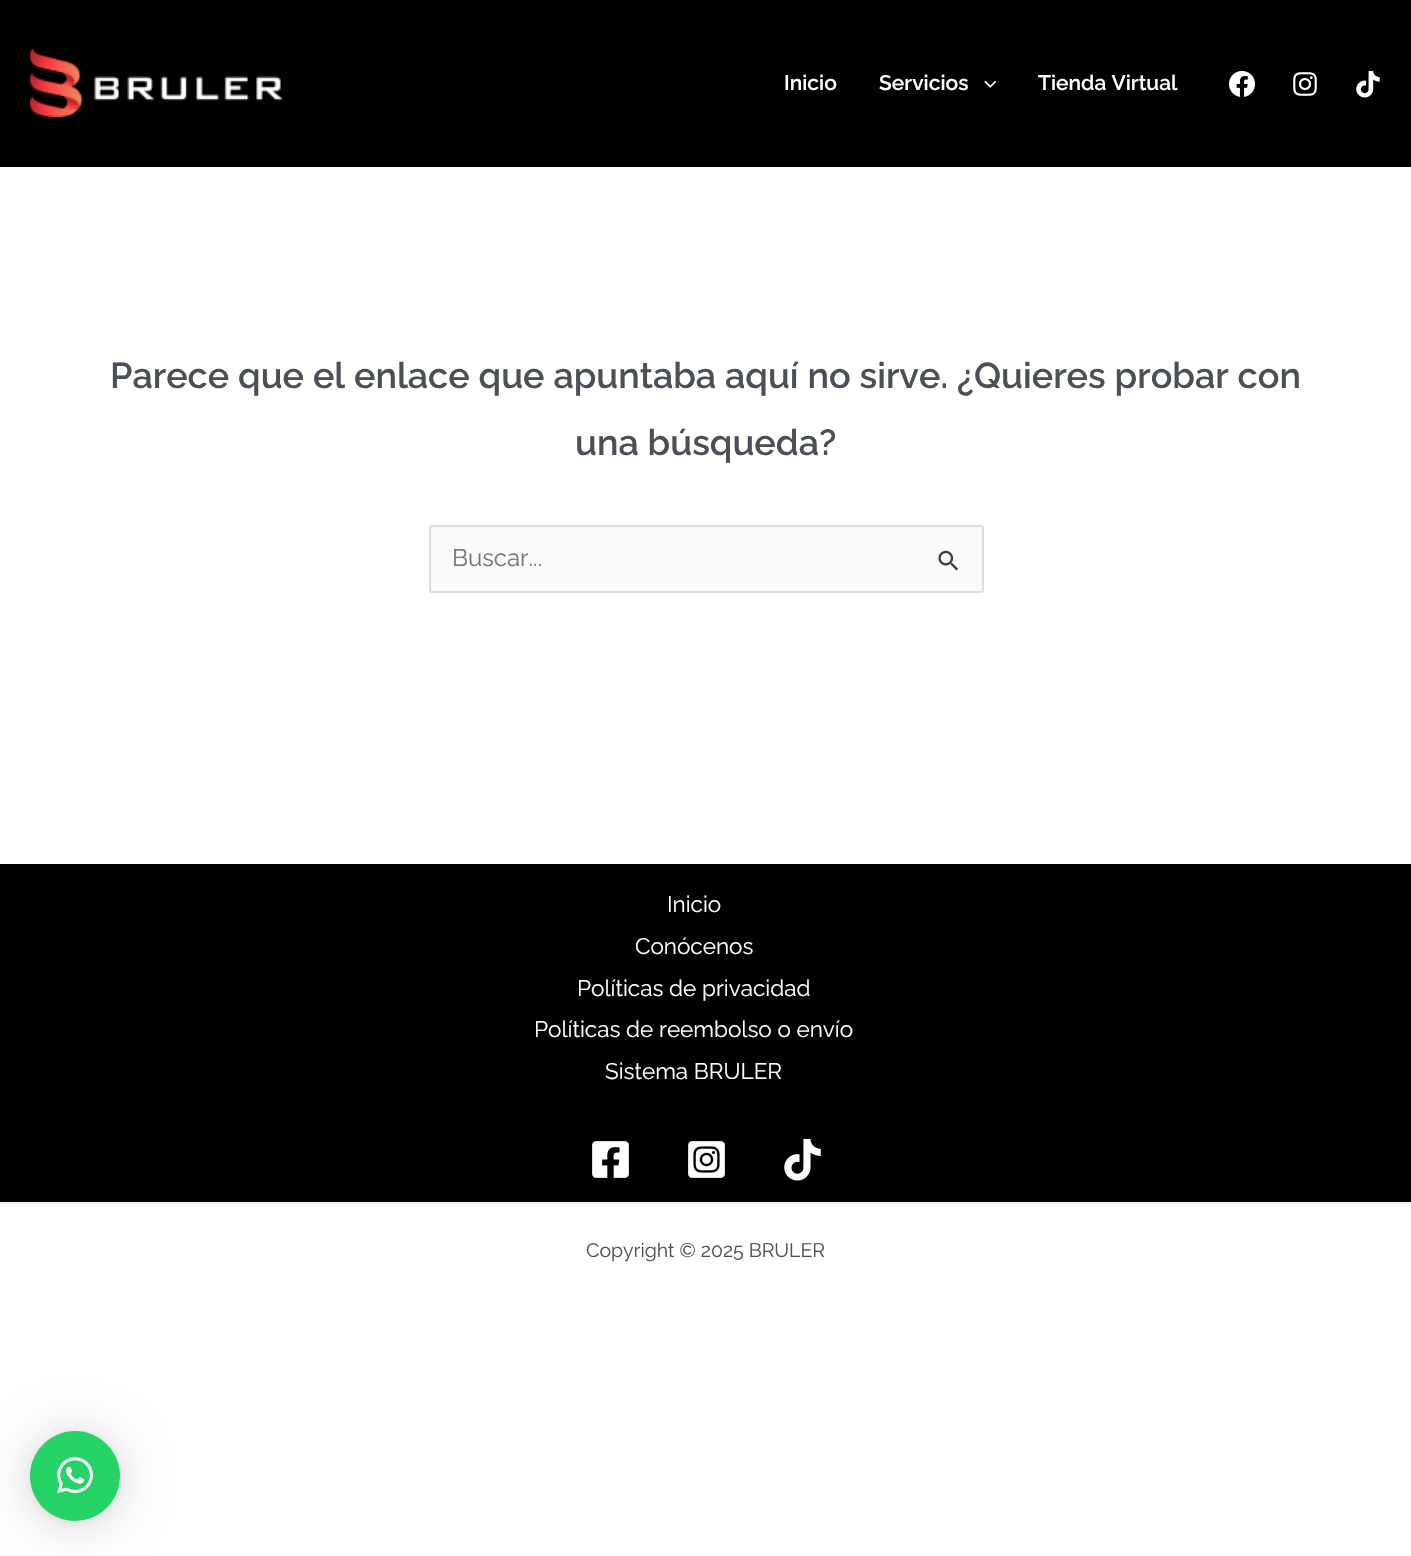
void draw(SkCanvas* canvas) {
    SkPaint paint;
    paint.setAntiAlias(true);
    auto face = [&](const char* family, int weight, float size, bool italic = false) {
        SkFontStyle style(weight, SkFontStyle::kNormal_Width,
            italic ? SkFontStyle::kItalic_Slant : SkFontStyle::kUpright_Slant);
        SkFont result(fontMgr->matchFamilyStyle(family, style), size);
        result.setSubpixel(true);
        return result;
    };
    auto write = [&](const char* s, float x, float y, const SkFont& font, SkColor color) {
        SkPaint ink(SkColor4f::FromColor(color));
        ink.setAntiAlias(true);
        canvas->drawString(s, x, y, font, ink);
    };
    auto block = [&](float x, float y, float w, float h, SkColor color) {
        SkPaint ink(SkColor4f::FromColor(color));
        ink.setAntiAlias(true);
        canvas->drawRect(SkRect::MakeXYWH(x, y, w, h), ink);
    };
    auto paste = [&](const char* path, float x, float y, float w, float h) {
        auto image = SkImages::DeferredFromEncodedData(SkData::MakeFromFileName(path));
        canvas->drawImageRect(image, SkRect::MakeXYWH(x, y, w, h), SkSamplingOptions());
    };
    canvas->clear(SK_ColorWHITE);
    block(0, 0, 1411, 167, SK_ColorBLACK);
    paste("pic1.png", 30, 48, 254, 69);
    auto kFont1 = face("Raleway", 600, 21);
    write("Inicio", 784, 90, kFont1, SK_ColorWHITE);
    write("Servicios", 879, 90, kFont1, SK_ColorWHITE);
    paste("pic2.png", 984, 80, 12, 8);
    write("Tienda Virtual", 1038, 90, kFont1, SK_ColorWHITE);
    paste("pic3.png", 1229, 71, 27, 26);
    paste("pic4.png", 1293, 72, 24, 24);
    paste("pic5.png", 1356, 71, 24, 27);
    auto kFont2 = face("Raleway", 600, 36);
    write("Parece que el enlace que apuntaba aquí no sirve. ¿Quieres probar con", 110, 388, kFont2, SkColorSetRGB(75, 79, 88));
    write("una búsqueda?", 575, 455, kFont2, SkColorSetRGB(75, 79, 88));
    paint.setColor(SkColorSetRGB(250, 250, 250));
    canvas->drawRoundRect(SkRect::MakeXYWH(430, 526, 553, 66), 2, 2, paint);
    paint.setStyle(SkPaint::kStroke_Style);
    paint.setStrokeWidth(2);
    paint.setColor(SkColorSetRGB(221, 221, 221));
    canvas->drawRoundRect(SkRect::MakeXYWH(430, 526, 553, 66), 2, 2, paint);
    auto kFont3 = face("Raleway", 400, 24);
    write("Buscar...", 452, 566, kFont3, SkColorSetRGB(117, 117, 117));
    paste("pic6.png", 938, 550, 21, 21);
    block(0, 864, 1411, 338, SK_ColorBLACK);
    auto kFont4 = face("Raleway", 400, 22.5f);
    write("Inicio", 667, 912, kFont4, SK_ColorWHITE);
    write("Conócenos", 635, 954, kFont4, SK_ColorWHITE);
    write("Políticas de privacidad", 577, 996, kFont4, SK_ColorWHITE);
    write("Políticas de reembolso o envío", 534, 1037, kFont4, SK_ColorWHITE);
    write("Sistema BRULER", 605, 1079, kFont4, SK_ColorWHITE);
    paste("pic7.png", 592, 1141, 37, 37);
    paste("pic8.png", 688, 1141, 37, 37);
    paste("pic9.png", 784, 1139, 37, 42);
    block(0, 1202, 1411, 2, SkColorSetRGB(242, 245, 247));
    auto kFont5 = face("Raleway", 400, 19.5f);
    write("Copyright © 2025 BRULER", 586, 1257, kFont5, SkColorSetRGB(75, 79, 88));
    paint.setStyle(SkPaint::kFill_Style);
    paint.setColor(SkColorSetARGB(41, 0, 0, 0));
    paint.setMaskFilter(SkMaskFilter::MakeBlur(kNormal_SkBlurStyle, 24));
    canvas->drawRoundRect(SkRect::MakeXYWH(30, 1434, 90, 90), 45, 45, paint);
    paint.setMaskFilter(nullptr);
    paint.setColor(SkColorSetARGB(15, 0, 0, 0));
    paint.setMaskFilter(SkMaskFilter::MakeBlur(kNormal_SkBlurStyle, 4.5f));
    canvas->drawRoundRect(SkRect::MakeXYWH(30, 1433, 90, 90), 45, 45, paint);
    paint.setMaskFilter(nullptr);
    paint.setColor(SkColorSetRGB(37, 211, 102));
    canvas->drawCircle(75, 1476, 45, paint);
    paste("pic10.png", 57, 1457, 36, 37);
}
